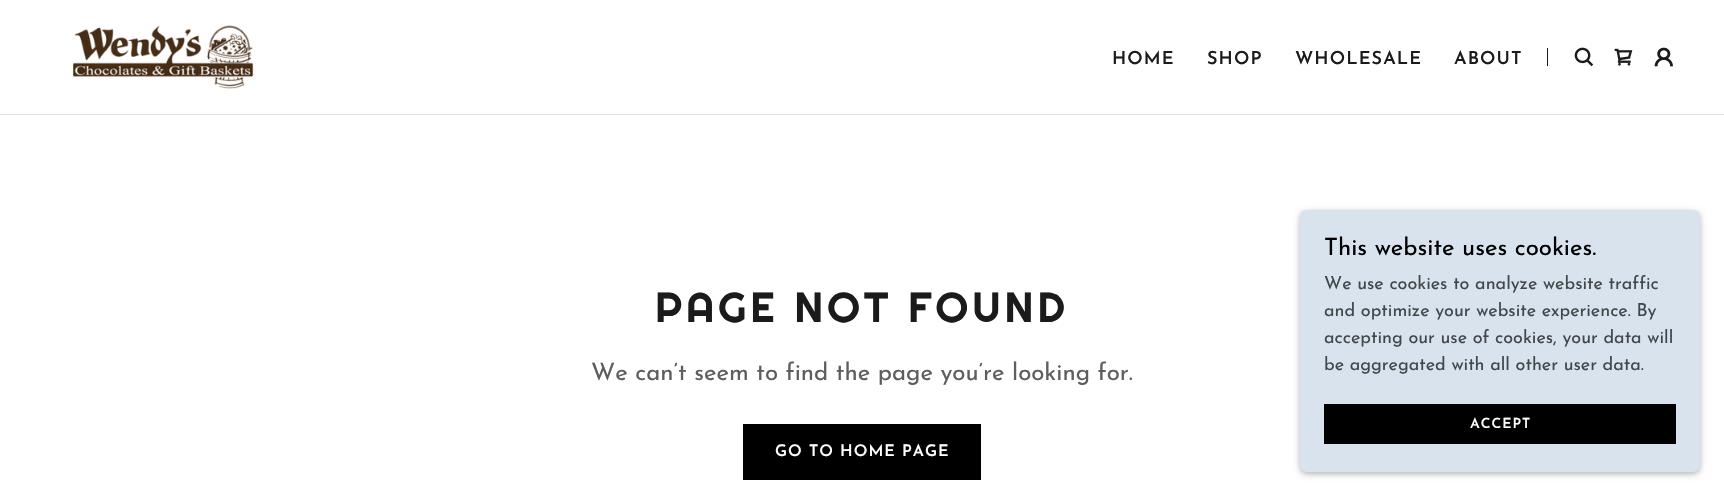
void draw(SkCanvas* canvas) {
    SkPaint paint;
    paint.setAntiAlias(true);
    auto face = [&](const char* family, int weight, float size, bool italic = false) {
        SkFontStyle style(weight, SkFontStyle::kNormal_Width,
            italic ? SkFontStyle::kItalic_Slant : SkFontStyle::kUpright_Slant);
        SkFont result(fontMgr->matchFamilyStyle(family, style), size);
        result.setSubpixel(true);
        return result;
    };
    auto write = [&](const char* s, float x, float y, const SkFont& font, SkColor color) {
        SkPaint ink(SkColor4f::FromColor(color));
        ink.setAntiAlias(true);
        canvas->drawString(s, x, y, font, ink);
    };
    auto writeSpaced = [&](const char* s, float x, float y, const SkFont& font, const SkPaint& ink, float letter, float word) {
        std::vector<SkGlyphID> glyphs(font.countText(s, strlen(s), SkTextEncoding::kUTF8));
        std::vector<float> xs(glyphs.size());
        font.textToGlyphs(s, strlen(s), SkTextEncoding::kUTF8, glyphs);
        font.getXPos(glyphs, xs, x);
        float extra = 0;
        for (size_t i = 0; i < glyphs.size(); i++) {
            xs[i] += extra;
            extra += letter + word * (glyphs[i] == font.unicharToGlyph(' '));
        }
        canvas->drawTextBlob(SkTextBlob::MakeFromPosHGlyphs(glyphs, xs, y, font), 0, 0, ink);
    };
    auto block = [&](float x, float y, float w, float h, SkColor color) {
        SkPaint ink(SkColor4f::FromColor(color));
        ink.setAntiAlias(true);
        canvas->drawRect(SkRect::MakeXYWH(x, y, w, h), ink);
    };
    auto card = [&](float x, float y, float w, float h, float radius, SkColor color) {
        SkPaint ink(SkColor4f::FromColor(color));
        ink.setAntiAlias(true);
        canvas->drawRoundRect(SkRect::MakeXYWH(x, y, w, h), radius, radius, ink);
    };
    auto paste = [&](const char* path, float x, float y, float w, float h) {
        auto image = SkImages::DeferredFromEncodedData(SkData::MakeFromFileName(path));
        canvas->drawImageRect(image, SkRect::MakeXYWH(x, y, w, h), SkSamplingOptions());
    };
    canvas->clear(SK_ColorWHITE);
    paste("pic1.png", 73, 25, 181, 64);
    auto kFont1 = face("Josefin Sans", 600, 18);
    paint.setColor(SkColorSetRGB(27, 27, 27));
    writeSpaced("HOME", 1112, 64, kFont1, paint, 1.1f, 0);
    writeSpaced("SHOP", 1207, 64, kFont1, paint, 1.1f, 0);
    writeSpaced("WHOLESALE", 1295, 64, kFont1, paint, 1.1f, 0);
    writeSpaced("ABOUT", 1454, 64, kFont1, paint, 1.1f, 0);
    block(1547, 48, 1, 18, SkColorSetRGB(27, 27, 27));
    paste("pic2.png", 1574, 47, 20, 20);
    paste("pic3.png", 1614, 48, 19, 18);
    paste("pic4.png", 1654, 47, 19, 20);
    block(0, 114, 1724, 1, SkColorSetRGB(226, 226, 226));
    auto kFont2 = face("Righteous", 400, 42);
    writeSpaced("PAGE NOT FOUND", 655, 322, kFont2, paint, 4, 0);
    auto kFont3 = face("Josefin Sans", 400, 24);
    write("We can’t seem to find the page you’re looking for.", 591, 380, kFont3, SkColorSetRGB(94, 94, 94));
    block(743, 424, 238, 56, SK_ColorBLACK);
    auto kFont4 = face("Josefin Sans", 600, 16);
    paint.setColor(SK_ColorWHITE);
    writeSpaced("GO TO HOME PAGE", 775, 456, kFont4, paint, 1, 0);
    paint.setColor(SkColorSetARGB(77, 0, 0, 0));
    paint.setMaskFilter(SkMaskFilter::MakeBlur(kNormal_SkBlurStyle, 3));
    canvas->drawRoundRect(SkRect::MakeXYWH(1300, 212, 400, 262), 7, 7, paint);
    paint.setMaskFilter(nullptr);
    card(1300, 210, 400, 262, 7, SkColorSetRGB(216, 227, 237));
    write("This website uses cookies.", 1324, 255, kFont3, SK_ColorBLACK);
    auto kFont5 = face("Josefin Sans", 400, 18);
    write("We use cookies to analyze website traffic", 1324, 289, kFont5, SkColorSetRGB(66, 71, 75));
    write("and optimize your website experience. By", 1324, 316, kFont5, SkColorSetRGB(66, 71, 75));
    write("accepting our use of cookies, your data will", 1324, 343, kFont5, SkColorSetRGB(66, 71, 75));
    write("be aggregated with all other user data.", 1324, 370, kFont5, SkColorSetRGB(66, 71, 75));
    block(1324, 404, 352, 40, SK_ColorBLACK);
    auto kFont6 = face("Josefin Sans", 600, 14);
    paint.setColor(SK_ColorWHITE);
    writeSpaced("ACCEPT", 1470, 428, kFont6, paint, 1, 0);
}
